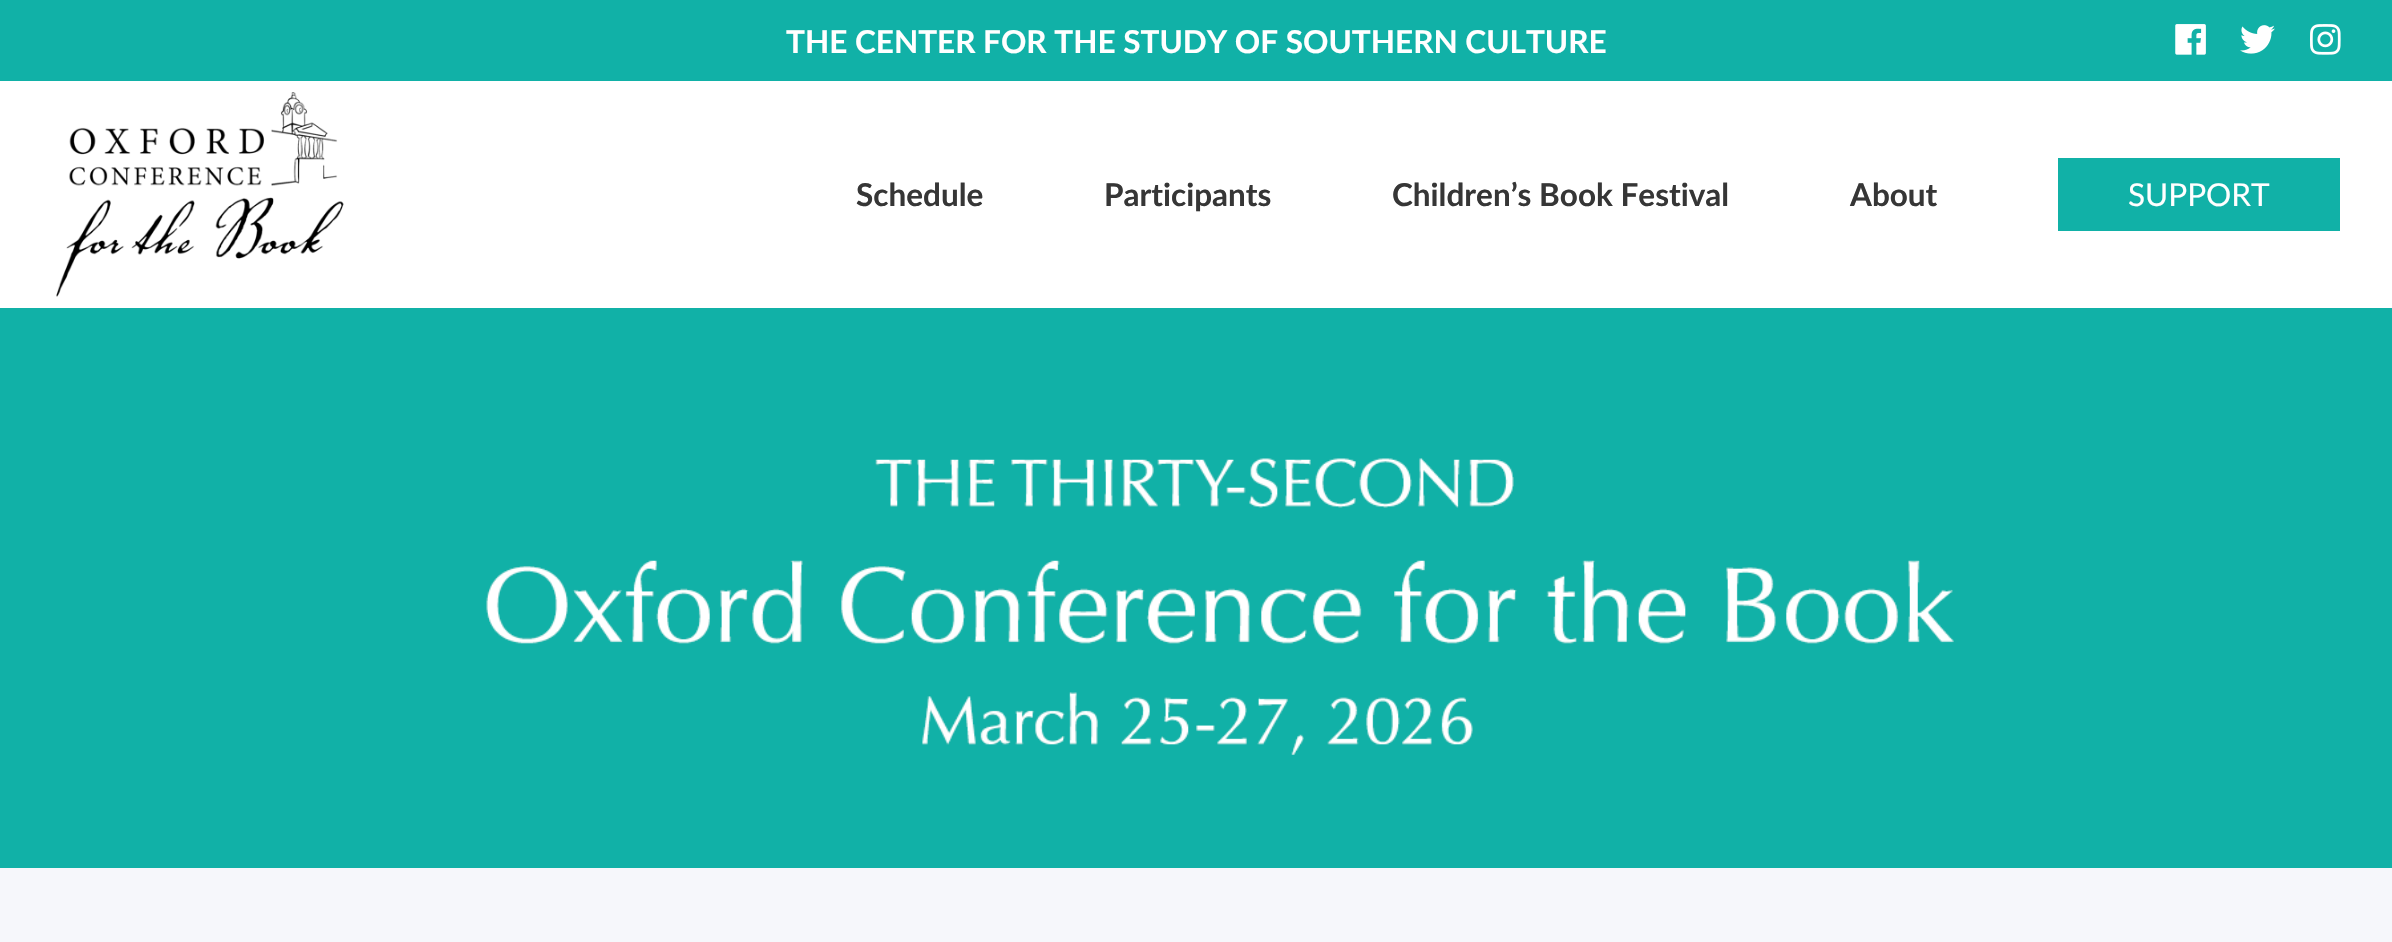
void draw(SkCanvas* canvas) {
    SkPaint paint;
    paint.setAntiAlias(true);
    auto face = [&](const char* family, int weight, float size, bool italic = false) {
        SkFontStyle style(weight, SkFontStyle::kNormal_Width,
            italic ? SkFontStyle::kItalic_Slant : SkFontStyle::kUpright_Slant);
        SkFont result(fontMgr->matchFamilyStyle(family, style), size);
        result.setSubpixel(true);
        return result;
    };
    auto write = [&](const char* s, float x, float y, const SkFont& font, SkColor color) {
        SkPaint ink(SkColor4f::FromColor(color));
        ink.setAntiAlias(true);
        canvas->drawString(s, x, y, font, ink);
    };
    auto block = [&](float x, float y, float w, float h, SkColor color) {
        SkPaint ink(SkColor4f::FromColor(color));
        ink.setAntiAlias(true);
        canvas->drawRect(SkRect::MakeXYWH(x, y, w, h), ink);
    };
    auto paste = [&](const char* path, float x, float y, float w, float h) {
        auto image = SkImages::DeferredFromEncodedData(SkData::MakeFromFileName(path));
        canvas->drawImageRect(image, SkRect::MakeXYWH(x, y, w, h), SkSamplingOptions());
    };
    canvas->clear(SK_ColorWHITE);
    block(0, 0, 2392, 81, SkColorSetRGB(17, 177, 167));
    auto kFont1 = face("Lato", 700, 31.5f);
    write("THE CENTER FOR THE STUDY OF SOUTHERN CULTURE", 786, 53, kFont1, SK_ColorWHITE);
    paste("pic1.png", 2175, 24, 31, 31);
    paste("pic2.png", 2240, 25, 35, 29);
    paste("pic3.png", 2310, 24, 31, 31);
    paste("pic4.png", 56, 92, 288, 205);
    write("Schedule", 856, 206, kFont1, SkColorSetRGB(54, 54, 54));
    write("Participants", 1104, 206, kFont1, SkColorSetRGB(54, 54, 54));
    write("Children’s Book Festival", 1392, 206, kFont1, SkColorSetRGB(54, 54, 54));
    write("About", 1850, 206, kFont1, SkColorSetRGB(54, 54, 54));
    block(2058, 158, 282, 73, SkColorSetRGB(17, 177, 167));
    auto kFont2 = face("Lato", 400, 31.5f);
    write("SUPPORT", 2128, 206, kFont2, SK_ColorWHITE);
    paste("pic5.png", 0, 308, 2392, 560);
    block(0, 868, 2392, 74, SkColorSetRGB(246, 247, 251));
}
